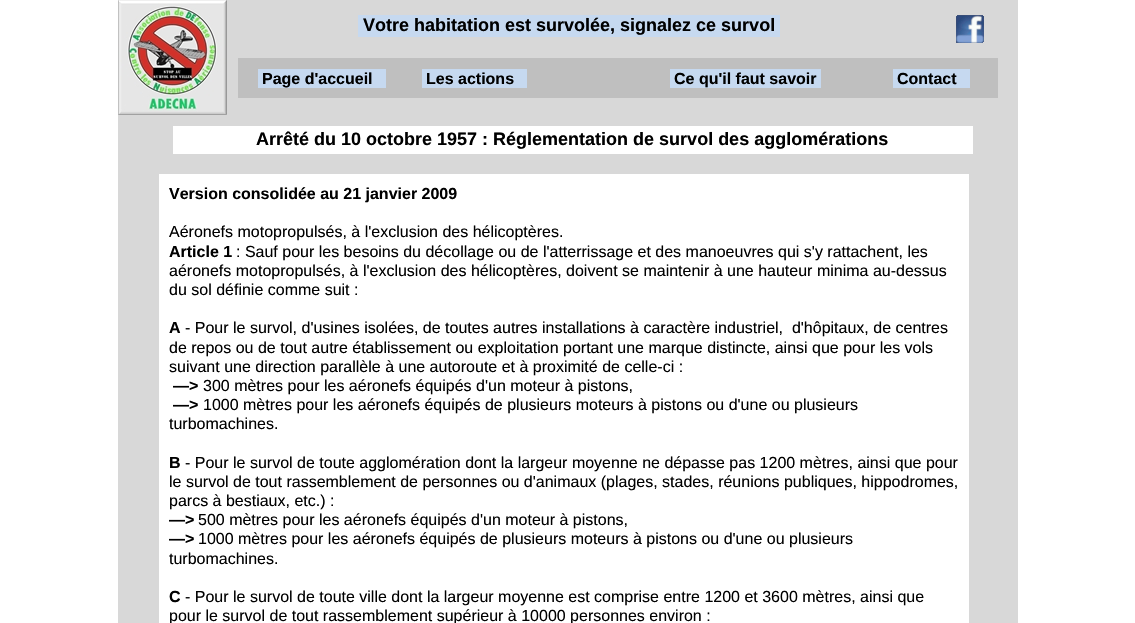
void draw(SkCanvas* canvas) {
    SkPaint paint;
    paint.setAntiAlias(true);
    auto face = [&](const char* family, int weight, float size, bool italic = false) {
        SkFontStyle style(weight, SkFontStyle::kNormal_Width,
            italic ? SkFontStyle::kItalic_Slant : SkFontStyle::kUpright_Slant);
        SkFont result(fontMgr->matchFamilyStyle(family, style), size);
        result.setSubpixel(true);
        return result;
    };
    auto write = [&](const char* s, float x, float y, const SkFont& font, SkColor color) {
        SkPaint ink(SkColor4f::FromColor(color));
        ink.setAntiAlias(true);
        canvas->drawString(s, x, y, font, ink);
    };
    auto block = [&](float x, float y, float w, float h, SkColor color) {
        SkPaint ink(SkColor4f::FromColor(color));
        ink.setAntiAlias(true);
        canvas->drawRect(SkRect::MakeXYWH(x, y, w, h), ink);
    };
    auto paste = [&](const char* path, float x, float y, float w, float h) {
        auto image = SkImages::DeferredFromEncodedData(SkData::MakeFromFileName(path));
        canvas->drawImageRect(image, SkRect::MakeXYWH(x, y, w, h), SkSamplingOptions());
    };
    canvas->clear(SK_ColorWHITE);
    block(118, 0, 900, 623, SkColorSetRGB(216, 216, 216));
    paste("pic1.png", 118, 0, 109, 115);
    block(358, 15, 422, 22, SkColorSetRGB(198, 217, 240));
    auto kFont1 = face("Liberation Sans", 700, 18);
    write("Votre habitation est survolée, signalez ce survol", 363, 31, kFont1, SK_ColorBLACK);
    paste("pic2.png", 956, 15, 28, 28);
    block(238, 58, 760, 40, SkColorSetRGB(191, 191, 191));
    block(258, 69, 128, 19, SkColorSetRGB(198, 217, 240));
    auto kFont2 = face("Liberation Sans", 700, 16);
    write("Page d'accueil", 262, 84, kFont2, SK_ColorBLACK);
    block(422, 69, 105, 19, SkColorSetRGB(198, 217, 240));
    write("Les actions", 426, 84, kFont2, SK_ColorBLACK);
    block(670, 69, 151, 19, SkColorSetRGB(198, 217, 240));
    write("Ce qu'il faut savoir", 674, 84, kFont2, SK_ColorBLACK);
    block(893, 69, 77, 19, SkColorSetRGB(198, 217, 240));
    write("Contact", 897, 84, kFont2, SK_ColorBLACK);
    block(173, 126, 800, 28, SK_ColorWHITE);
    write("Arrêté du 10 octobre 1957 : Réglementation de survol des agglomérations", 256, 145, kFont1, SK_ColorBLACK);
    block(159, 174, 810, 449, SK_ColorWHITE);
    write("Version consolidée au 21 janvier 2009", 169, 199, kFont2, SK_ColorBLACK);
    auto kFont3 = face("Liberation Sans", 400, 16);
    write("Aéronefs motopropulsés, à l'exclusion des hélicoptères.", 169, 237, kFont3, SK_ColorBLACK);
    write("Article 1", 169, 257, kFont2, SK_ColorBLACK);
    write(": Sauf pour les besoins du décollage ou de l'atterrissage et des manoeuvres qui s'y rattachent, les", 236, 257, kFont3, SK_ColorBLACK);
    write("aéronefs motopropulsés, à l'exclusion des hélicoptères, doivent se maintenir à une hauteur minima au-dessus", 169, 276, kFont3, SK_ColorBLACK);
    write("du sol définie comme suit :", 169, 295, kFont3, SK_ColorBLACK);
    write("A", 169, 333, kFont2, SK_ColorBLACK);
    write("- Pour le survol, d'usines isolées, de toutes autres installations à caractère industriel,  d'hôpitaux, de centres", 185, 333, kFont3, SK_ColorBLACK);
    write("de repos ou de tout autre établissement ou exploitation portant une marque distincte, ainsi que pour les vols", 169, 353, kFont3, SK_ColorBLACK);
    write("suivant une direction parallèle à une autoroute et à proximité de celle-ci :", 169, 372, kFont3, SK_ColorBLACK);
    write("—>", 173, 391, kFont2, SK_ColorBLACK);
    write("300 mètres pour les aéronefs équipés d'un moteur à pistons,", 203, 391, kFont3, SK_ColorBLACK);
    write("—>", 173, 410, kFont2, SK_ColorBLACK);
    write("1000 mètres pour les aéronefs équipés de plusieurs moteurs à pistons ou d'une ou plusieurs", 203, 410, kFont3, SK_ColorBLACK);
    write("turbomachines.", 169, 429, kFont3, SK_ColorBLACK);
    write("B", 169, 468, kFont2, SK_ColorBLACK);
    write("- Pour le survol de toute agglomération dont la largeur moyenne ne dépasse pas 1200 mètres, ainsi que pour", 185, 468, kFont3, SK_ColorBLACK);
    write("le survol de tout rassemblement de personnes ou d'animaux (plages, stades, réunions publiques, hippodromes,", 169, 487, kFont3, SK_ColorBLACK);
    write("parcs à bestiaux, etc.) :", 169, 506, kFont3, SK_ColorBLACK);
    write("—>", 169, 525, kFont2, SK_ColorBLACK);
    write("500 mètres pour les aéronefs équipés d'un moteur à pistons,", 198, 525, kFont3, SK_ColorBLACK);
    write("—>", 169, 544, kFont2, SK_ColorBLACK);
    write("1000 mètres pour les aéronefs équipés de plusieurs moteurs à pistons ou d'une ou plusieurs", 198, 544, kFont3, SK_ColorBLACK);
    write("turbomachines.", 169, 564, kFont3, SK_ColorBLACK);
    write("C", 169, 602, kFont2, SK_ColorBLACK);
    write("- Pour le survol de toute ville dont la largeur moyenne est comprise entre 1200 et 3600 mètres, ainsi que", 185, 602, kFont3, SK_ColorBLACK);
    write("pour le survol de tout rassemblement supérieur à 10000 personnes environ :", 169, 621, kFont3, SK_ColorBLACK);
}
